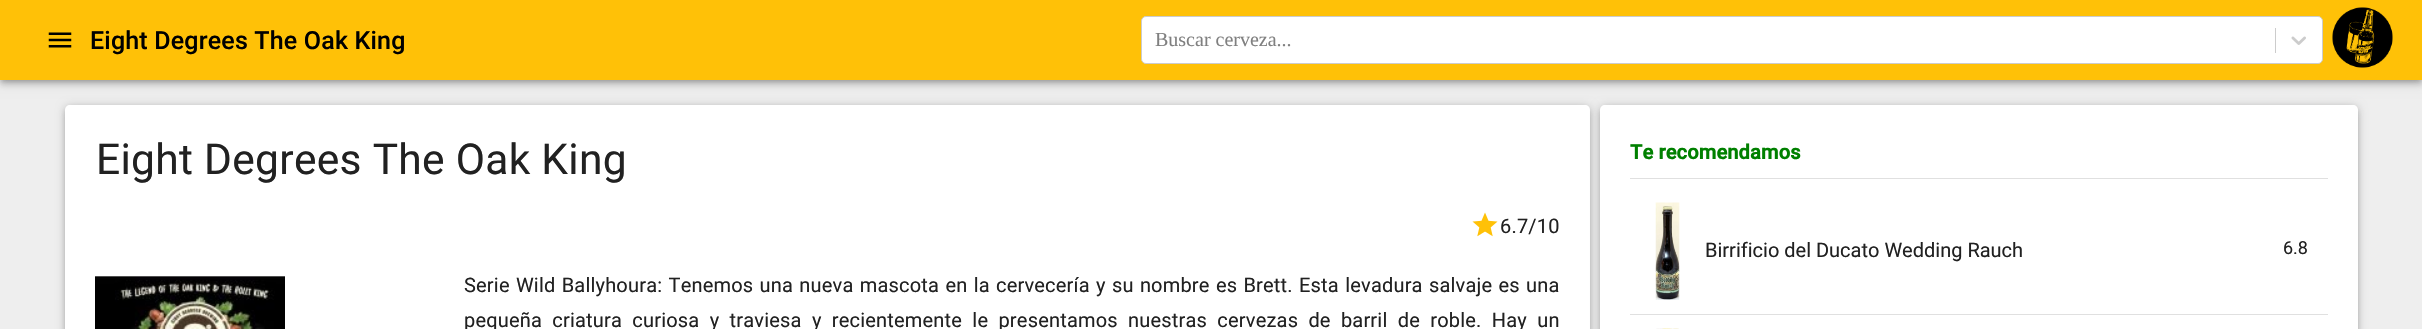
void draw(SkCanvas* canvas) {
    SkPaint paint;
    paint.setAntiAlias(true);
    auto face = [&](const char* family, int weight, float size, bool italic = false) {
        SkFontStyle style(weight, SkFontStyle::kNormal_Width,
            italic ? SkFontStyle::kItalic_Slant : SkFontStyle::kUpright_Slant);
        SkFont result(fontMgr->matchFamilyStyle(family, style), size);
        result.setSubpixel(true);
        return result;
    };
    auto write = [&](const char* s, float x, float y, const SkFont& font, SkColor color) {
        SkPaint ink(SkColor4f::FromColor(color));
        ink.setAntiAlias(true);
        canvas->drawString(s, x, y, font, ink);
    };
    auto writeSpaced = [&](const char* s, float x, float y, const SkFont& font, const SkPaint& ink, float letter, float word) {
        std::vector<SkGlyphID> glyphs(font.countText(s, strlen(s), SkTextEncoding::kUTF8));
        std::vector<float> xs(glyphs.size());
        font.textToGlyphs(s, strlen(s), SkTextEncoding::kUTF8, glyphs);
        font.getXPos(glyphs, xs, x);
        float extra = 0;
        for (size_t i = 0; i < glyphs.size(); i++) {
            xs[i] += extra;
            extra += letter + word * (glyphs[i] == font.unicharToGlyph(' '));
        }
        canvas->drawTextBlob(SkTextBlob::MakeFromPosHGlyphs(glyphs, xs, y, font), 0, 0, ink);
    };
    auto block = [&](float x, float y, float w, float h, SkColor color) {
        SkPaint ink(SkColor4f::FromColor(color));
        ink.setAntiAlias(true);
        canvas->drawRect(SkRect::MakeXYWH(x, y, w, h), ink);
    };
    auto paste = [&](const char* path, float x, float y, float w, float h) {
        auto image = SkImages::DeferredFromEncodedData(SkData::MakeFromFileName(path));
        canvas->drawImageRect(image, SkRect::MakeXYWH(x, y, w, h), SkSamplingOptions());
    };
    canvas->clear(SkColorSetRGB(238, 238, 238));
    paint.setColor(SkColorSetARGB(31, 0, 0, 0));
    paint.setMaskFilter(SkMaskFilter::MakeBlur(kNormal_SkBlurStyle, 6));
    canvas->drawRect(SkRect::MakeXYWH(0, 1, 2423, 80), paint);
    paint.setMaskFilter(nullptr);
    paint.setColor(SkColorSetARGB(36, 0, 0, 0));
    paint.setMaskFilter(SkMaskFilter::MakeBlur(kNormal_SkBlurStyle, 3));
    canvas->drawRect(SkRect::MakeXYWH(0, 5, 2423, 80), paint);
    paint.setMaskFilter(nullptr);
    paint.setColor(SkColorSetARGB(51, 0, 0, 0));
    paint.setMaskFilter(SkMaskFilter::MakeBlur(kNormal_SkBlurStyle, 2.5f));
    canvas->drawRect(SkRect::MakeXYWH(1, 4, 2420, 77), paint);
    paint.setMaskFilter(nullptr);
    block(0, 0, 2422, 80, SkColorSetRGB(255, 193, 7));
    paste("pic1.png", 48, 32, 24, 16);
    auto kFont1 = face("Roboto", 500, 25);
    paint.setColor(SK_ColorBLACK);
    writeSpaced("Eight Degrees The Oak King", 90, 49, kFont1, paint, 0.19f, 0);
    paint.setColor(SK_ColorWHITE);
    canvas->drawRoundRect(SkRect::MakeXYWH(1141.5f, 16.5f, 1181, 47), 4.5f, 4.5f, paint);
    paint.setStyle(SkPaint::kStroke_Style);
    paint.setStrokeWidth(1);
    paint.setColor(SkColorSetRGB(204, 204, 204));
    canvas->drawRoundRect(SkRect::MakeXYWH(1141.5f, 16.5f, 1181, 47), 4.5f, 4.5f, paint);
    auto kFont2 = face("Liberation Serif", 400, 20);
    write("Buscar cerveza...", 1155, 46, kFont2, SkColorSetRGB(128, 128, 128));
    block(2275, 28, 1, 25, SkColorSetRGB(204, 204, 204));
    paste("pic2.png", 2291, 36, 15, 9);
    paste("pic3.png", 2332, 7, 61, 61);
    paint.setStyle(SkPaint::kFill_Style);
    paint.setColor(SkColorSetARGB(36, 0, 0, 0));
    paint.setMaskFilter(SkMaskFilter::MakeBlur(kNormal_SkBlurStyle, 2.5f));
    canvas->drawRoundRect(SkRect::MakeXYWH(65, 109, 1525, 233), 5, 5, paint);
    paint.setMaskFilter(nullptr);
    paint.setColor(SkColorSetARGB(51, 0, 0, 0));
    paint.setMaskFilter(SkMaskFilter::MakeBlur(kNormal_SkBlurStyle, 5));
    canvas->drawRoundRect(SkRect::MakeXYWH(65, 106, 1525, 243), 5, 5, paint);
    paint.setMaskFilter(nullptr);
    paint.setColor(SK_ColorWHITE);
    canvas->drawPath(SkPathBuilder().moveTo(70, 105).lineTo(1585, 105).cubicTo(1588, 105, 1590, 107, 1590, 110).lineTo(1590, 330).lineTo(65, 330).lineTo(65, 110).cubicTo(65, 107, 67, 105, 70, 105).close().detach(), paint);
    auto kFont3 = face("Roboto", 400, 42.5f);
    paint.setColor(SkColorSetRGB(33, 33, 33));
    writeSpaced("Eight Degrees The Oak King", 96, 174, kFont3, paint, 0.3f, 0);
    paste("pic4.png", 95, 276, 190, 53);
    paste("pic5.png", 1472, 212, 26, 25);
    auto kFont4 = face("Roboto", 400, 20);
    writeSpaced("6.7/10", 1500, 233, kFont4, paint, 0.19f, 0);
    writeSpaced("Serie Wild Ballyhoura: Tenemos una nueva mascota en la cervecería y su nombre es Brett. Esta levadura salvaje es una", 464, 292, kFont4, paint, 0.19f, 1.1f);
    writeSpaced("pequeña criatura curiosa y traviesa y recientemente le presentamos nuestras cervezas de barril de roble. Hay un", 464, 327, kFont4, paint, 0.19f, 5.1f);
    paint.setColor(SkColorSetARGB(36, 0, 0, 0));
    paint.setMaskFilter(SkMaskFilter::MakeBlur(kNormal_SkBlurStyle, 2.5f));
    canvas->drawRoundRect(SkRect::MakeXYWH(1600, 109, 758, 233), 5, 5, paint);
    paint.setMaskFilter(nullptr);
    paint.setColor(SkColorSetARGB(51, 0, 0, 0));
    paint.setMaskFilter(SkMaskFilter::MakeBlur(kNormal_SkBlurStyle, 5));
    canvas->drawRoundRect(SkRect::MakeXYWH(1600, 106, 758, 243), 5, 5, paint);
    paint.setMaskFilter(nullptr);
    paint.setColor(SK_ColorWHITE);
    canvas->drawPath(SkPathBuilder().moveTo(1605, 105).lineTo(2353, 105).cubicTo(2356, 105, 2358, 107, 2358, 110).lineTo(2358, 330).lineTo(1600, 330).lineTo(1600, 110).cubicTo(1600, 107, 1602, 105, 1605, 105).close().detach(), paint);
    auto kFont5 = face("Roboto", 700, 20);
    paint.setColor(SkColorSetRGB(0, 128, 0));
    writeSpaced("Te recomendamos", 1630, 159, kFont5, paint, 0.19f, 0);
    block(1630, 178, 698, 1, SkColorSetRGB(224, 224, 224));
    block(1630, 314, 698, 1, SkColorSetRGB(224, 224, 224));
    paste("pic6.png", 1655, 202, 25, 98);
    write("Birrificio del Ducato Wedding Rauch", 1705, 257, kFont4, SkColorSetRGB(33, 33, 33));
    auto kFont6 = face("Roboto", 400, 18);
    write("6.8", 2283, 254, kFont6, SkColorSetRGB(33, 33, 33));
    paste("pic7.png", 1656, 328, 23, 1);
}
